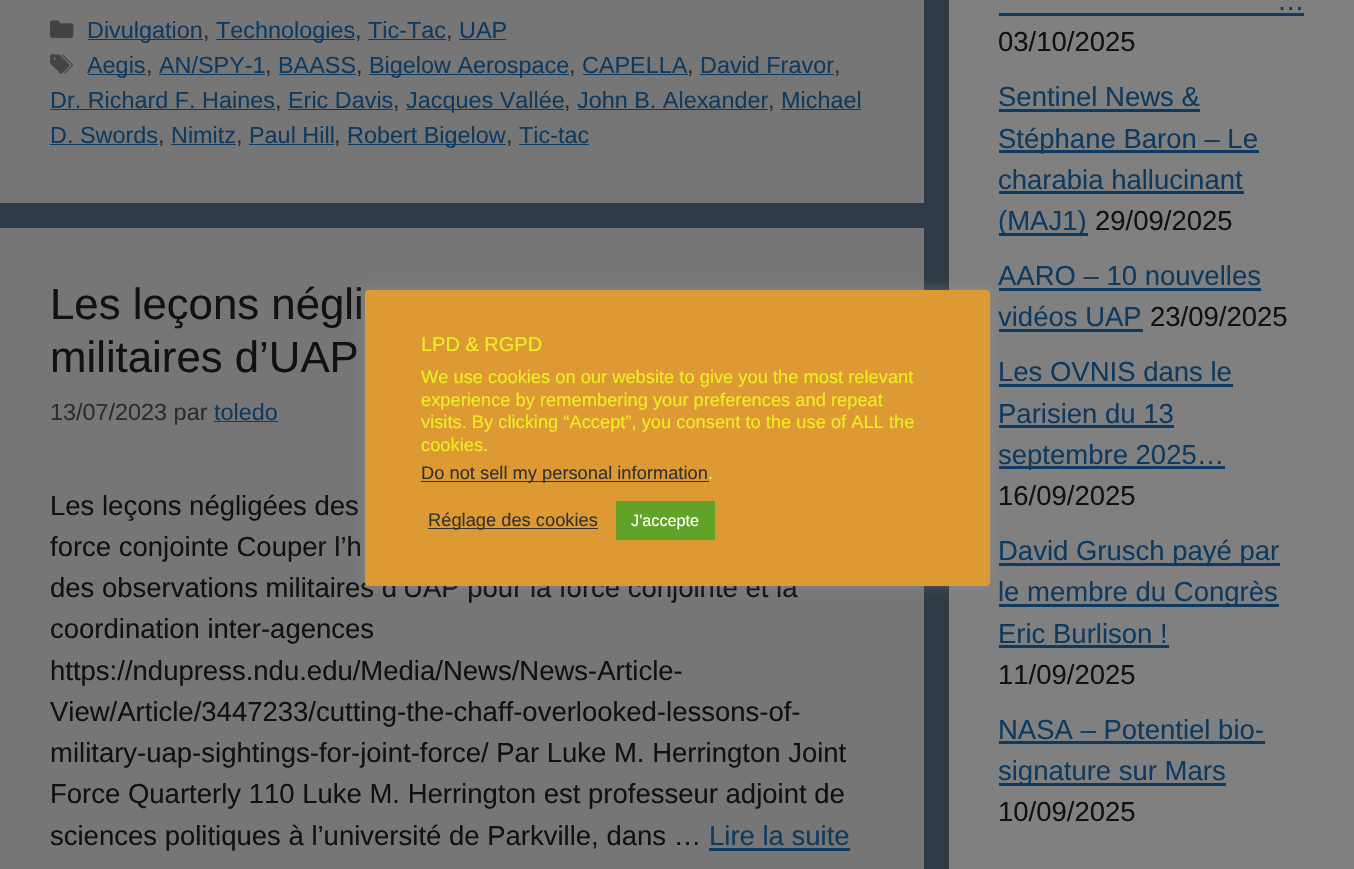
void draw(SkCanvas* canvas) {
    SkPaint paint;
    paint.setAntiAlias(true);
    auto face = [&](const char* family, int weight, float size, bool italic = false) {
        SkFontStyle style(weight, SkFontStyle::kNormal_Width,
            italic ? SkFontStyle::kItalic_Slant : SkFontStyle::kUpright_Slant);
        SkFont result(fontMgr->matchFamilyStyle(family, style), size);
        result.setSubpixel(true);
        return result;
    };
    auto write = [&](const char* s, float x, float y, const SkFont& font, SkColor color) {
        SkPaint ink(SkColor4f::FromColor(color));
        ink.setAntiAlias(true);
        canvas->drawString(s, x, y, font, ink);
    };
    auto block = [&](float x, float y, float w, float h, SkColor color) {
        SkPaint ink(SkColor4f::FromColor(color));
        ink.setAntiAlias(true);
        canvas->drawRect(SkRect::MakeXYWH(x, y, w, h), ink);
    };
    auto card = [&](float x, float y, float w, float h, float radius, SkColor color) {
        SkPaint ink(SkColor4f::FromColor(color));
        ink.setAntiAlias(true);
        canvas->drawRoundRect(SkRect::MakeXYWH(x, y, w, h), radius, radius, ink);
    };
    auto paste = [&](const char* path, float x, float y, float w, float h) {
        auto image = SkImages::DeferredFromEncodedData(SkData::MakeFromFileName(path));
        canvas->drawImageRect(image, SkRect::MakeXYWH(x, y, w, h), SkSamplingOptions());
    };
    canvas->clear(SkColorSetRGB(47, 59, 70));
    block(0, 0, 924, 203, SkColorSetRGB(118, 118, 118));
    paste("pic1.png", 50, 20, 24, 18);
    block(88, 39, 115, 1, SkColorSetRGB(15, 58, 95));
    auto kFont1 = face("Liberation Sans", 400, 23.4f);
    write("Divulgation", 87, 38, kFont1, SkColorSetRGB(15, 58, 95));
    write(",", 203, 38, kFont1, SkColorSetRGB(44, 44, 48));
    block(216, 39, 139, 1, SkColorSetRGB(15, 58, 95));
    write("Technologies", 216, 38, kFont1, SkColorSetRGB(15, 58, 95));
    write(",", 355, 38, kFont1, SkColorSetRGB(44, 44, 48));
    write("Tic-Tac", 368, 38, kFont1, SkColorSetRGB(15, 58, 95));
    block(368, 39, 78, 1, SkColorSetRGB(15, 58, 95));
    write(",", 446, 38, kFont1, SkColorSetRGB(44, 44, 48));
    write("UAP", 459, 38, kFont1, SkColorSetRGB(15, 58, 95));
    block(459, 39, 47, 1, SkColorSetRGB(15, 58, 95));
    paste("pic2.png", 50, 54, 24, 20);
    block(88, 74, 58, 1, SkColorSetRGB(15, 58, 95));
    write("Aegis", 87, 73, kFont1, SkColorSetRGB(15, 58, 95));
    write(",", 146, 73, kFont1, SkColorSetRGB(44, 44, 48));
    write("AN/SPY-1", 159, 73, kFont1, SkColorSetRGB(15, 58, 95));
    block(159, 74, 106, 1, SkColorSetRGB(15, 58, 95));
    write(",", 265, 73, kFont1, SkColorSetRGB(44, 44, 48));
    write("BAASS", 278, 73, kFont1, SkColorSetRGB(15, 58, 95));
    block(279, 74, 77, 1, SkColorSetRGB(15, 58, 95));
    write(",", 356, 73, kFont1, SkColorSetRGB(44, 44, 48));
    block(369, 74, 200, 1, SkColorSetRGB(15, 58, 95));
    write("Bigelow Aerospace", 369, 73, kFont1, SkColorSetRGB(15, 58, 95));
    write(",", 569, 73, kFont1, SkColorSetRGB(44, 44, 48));
    write("CAPELLA", 582, 73, kFont1, SkColorSetRGB(15, 58, 95));
    block(583, 74, 105, 1, SkColorSetRGB(15, 58, 95));
    write(",", 687, 73, kFont1, SkColorSetRGB(44, 44, 48));
    write("David Fravor", 700, 73, kFont1, SkColorSetRGB(15, 58, 95));
    block(700, 74, 134, 1, SkColorSetRGB(15, 58, 95));
    write(",", 834, 73, kFont1, SkColorSetRGB(44, 44, 48));
    write("Dr. Richard F. Haines", 50, 108, kFont1, SkColorSetRGB(15, 58, 95));
    block(50, 109, 225, 1, SkColorSetRGB(15, 58, 95));
    write(",", 275, 108, kFont1, SkColorSetRGB(44, 44, 48));
    write("Eric Davis", 288, 108, kFont1, SkColorSetRGB(15, 58, 95));
    block(288, 109, 105, 1, SkColorSetRGB(15, 58, 95));
    write(",", 393, 108, kFont1, SkColorSetRGB(44, 44, 48));
    block(406, 109, 158, 1, SkColorSetRGB(15, 58, 95));
    write("Jacques Vallée", 406, 108, kFont1, SkColorSetRGB(15, 58, 95));
    write(",", 564, 108, kFont1, SkColorSetRGB(44, 44, 48));
    write("John B. Alexander", 577, 108, kFont1, SkColorSetRGB(15, 58, 95));
    block(578, 109, 190, 1, SkColorSetRGB(15, 58, 95));
    write(",", 768, 108, kFont1, SkColorSetRGB(44, 44, 48));
    write("Michael", 781, 108, kFont1, SkColorSetRGB(15, 58, 95));
    block(781, 109, 80, 1, SkColorSetRGB(15, 58, 95));
    write("D. Swords", 50, 143, kFont1, SkColorSetRGB(15, 58, 95));
    block(50, 144, 108, 1, SkColorSetRGB(15, 58, 95));
    write(",", 158, 143, kFont1, SkColorSetRGB(44, 44, 48));
    write("Nimitz", 171, 143, kFont1, SkColorSetRGB(15, 58, 95));
    block(171, 144, 65, 1, SkColorSetRGB(15, 58, 95));
    write(",", 236, 143, kFont1, SkColorSetRGB(44, 44, 48));
    write("Paul Hill", 249, 143, kFont1, SkColorSetRGB(15, 58, 95));
    block(249, 144, 85, 1, SkColorSetRGB(15, 58, 95));
    write(",", 334, 143, kFont1, SkColorSetRGB(44, 44, 48));
    block(348, 144, 158, 1, SkColorSetRGB(15, 58, 95));
    write("Robert Bigelow", 347, 143, kFont1, SkColorSetRGB(15, 58, 95));
    write(",", 506, 143, kFont1, SkColorSetRGB(44, 44, 48));
    write("Tic-tac", 519, 143, kFont1, SkColorSetRGB(15, 58, 95));
    block(519, 144, 70, 1, SkColorSetRGB(15, 58, 95));
    block(0, 228, 924, 641, SkColorSetRGB(118, 118, 118));
    auto kFont2 = face("Liberation Sans", 400, 43.75f);
    write("Les leçons négli", 50, 319, kFont2, SkColorSetRGB(17, 17, 17));
    write("militaires d’UAP", 50, 372, kFont2, SkColorSetRGB(17, 17, 17));
    write("13/07/2023 par", 50, 420, kFont1, SkColorSetRGB(44, 44, 48));
    write("toledo", 214, 420, kFont1, SkColorSetRGB(15, 58, 95));
    block(214, 421, 64, 1, SkColorSetRGB(15, 58, 95));
    auto kFont3 = face("Liberation Sans", 400, 27.5f);
    write("Les leçons négligées des", 50, 515, kFont3, SkColorSetRGB(17, 17, 17));
    write("force conjointe Couper l’h", 50, 556, kFont3, SkColorSetRGB(17, 17, 17));
    write("des observations militaires d’UAP pour la force conjointe et la", 50, 597, kFont3, SkColorSetRGB(17, 17, 17));
    write("coordination inter-agences", 50, 638, kFont3, SkColorSetRGB(17, 17, 17));
    write("https://ndupress.ndu.edu/Media/News/News-Article-", 50, 680, kFont3, SkColorSetRGB(17, 17, 17));
    write("View/Article/3447233/cutting-the-chaff-overlooked-lessons-of-", 50, 721, kFont3, SkColorSetRGB(17, 17, 17));
    write("military-uap-sightings-for-joint-force/ Par Luke M. Herrington Joint", 50, 762, kFont3, SkColorSetRGB(17, 17, 17));
    write("Force Quarterly 110 Luke M. Herrington est professeur adjoint de", 50, 803, kFont3, SkColorSetRGB(17, 17, 17));
    write("sciences politiques à l’université de Parkville, dans …", 50, 845, kFont3, SkColorSetRGB(17, 17, 17));
    write("Lire la suite", 709, 845, kFont3, SkColorSetRGB(15, 58, 95));
    block(709, 848, 141, 3, SkColorSetRGB(15, 58, 95));
    block(949, 0, 405, 869, SkColorSetRGB(128, 128, 128));
    write("…", 1277, 10, kFont3, SkColorSetRGB(15, 58, 95));
    block(999, 13, 305, 3, SkColorSetRGB(15, 58, 95));
    write("03/10/2025", 998, 51, kFont3, SkColorSetRGB(17, 17, 17));
    write("Sentinel News &", 998, 106, kFont3, SkColorSetRGB(15, 58, 95));
    block(999, 109, 201, 3, SkColorSetRGB(15, 58, 95));
    block(999, 150, 260, 3, SkColorSetRGB(15, 58, 95));
    write("Stéphane Baron – Le", 998, 148, kFont3, SkColorSetRGB(15, 58, 95));
    write("charabia hallucinant", 998, 189, kFont3, SkColorSetRGB(15, 58, 95));
    block(999, 191, 245, 3, SkColorSetRGB(15, 58, 95));
    block(999, 233, 89, 3, SkColorSetRGB(15, 58, 95));
    write("(MAJ1)", 998, 230, kFont3, SkColorSetRGB(15, 58, 95));
    write("29/09/2025", 1095, 230, kFont3, SkColorSetRGB(17, 17, 17));
    write("AARO – 10 nouvelles", 998, 285, kFont3, SkColorSetRGB(15, 58, 95));
    block(999, 288, 262, 3, SkColorSetRGB(15, 58, 95));
    write("vidéos UAP", 998, 326, kFont3, SkColorSetRGB(15, 58, 95));
    block(999, 329, 144, 3, SkColorSetRGB(15, 58, 95));
    write("23/09/2025", 1150, 326, kFont3, SkColorSetRGB(17, 17, 17));
    write("Les OVNIS dans le", 998, 381, kFont3, SkColorSetRGB(15, 58, 95));
    block(999, 384, 234, 3, SkColorSetRGB(15, 58, 95));
    write("Parisien du 13", 998, 423, kFont3, SkColorSetRGB(15, 58, 95));
    block(999, 425, 175, 3, SkColorSetRGB(15, 58, 95));
    block(999, 466, 226, 3, SkColorSetRGB(15, 58, 95));
    write("septembre 2025…", 998, 464, kFont3, SkColorSetRGB(15, 58, 95));
    write("16/09/2025", 998, 505, kFont3, SkColorSetRGB(17, 17, 17));
    block(999, 563, 281, 3, SkColorSetRGB(15, 58, 95));
    write("David Grusch payé par", 998, 560, kFont3, SkColorSetRGB(15, 58, 95));
    block(999, 604, 280, 3, SkColorSetRGB(15, 58, 95));
    write("le membre du Congrès", 998, 601, kFont3, SkColorSetRGB(15, 58, 95));
    write("Eric Burlison !", 998, 643, kFont3, SkColorSetRGB(15, 58, 95));
    block(999, 645, 170, 3, SkColorSetRGB(15, 58, 95));
    write("11/09/2025", 998, 684, kFont3, SkColorSetRGB(17, 17, 17));
    write("NASA – Potentiel bio-", 998, 739, kFont3, SkColorSetRGB(15, 58, 95));
    block(999, 741, 266, 3, SkColorSetRGB(15, 58, 95));
    block(999, 783, 227, 3, SkColorSetRGB(15, 58, 95));
    write("signature sur Mars", 998, 780, kFont3, SkColorSetRGB(15, 58, 95));
    write("10/09/2025", 998, 821, kFont3, SkColorSetRGB(17, 17, 17));
    paint.setColor(SkColorSetARGB(77, 172, 171, 171));
    paint.setMaskFilter(SkMaskFilter::MakeBlur(kNormal_SkBlurStyle, 6));
    canvas->drawRoundRect(SkRect::MakeXYWH(365, 289, 625, 296), 4, 4, paint);
    paint.setMaskFilter(nullptr);
    card(365, 290, 625, 296, 4, SkColorSetRGB(221, 153, 51));
    auto kFont4 = face("Liberation Sans", 400, 20);
    write("LPD & RGPD", 421, 351, kFont4, SkColorSetRGB(238, 238, 34));
    auto kFont5 = face("Liberation Sans", 400, 18.3f);
    write("We use cookies on our website to give you the most relevant", 421, 383, kFont5, SkColorSetRGB(238, 238, 34));
    write("experience by remembering your preferences and repeat", 421, 406, kFont5, SkColorSetRGB(238, 238, 34));
    write("visits. By clicking “Accept”, you consent to the use of ALL the", 421, 428, kFont5, SkColorSetRGB(238, 238, 34));
    write("cookies.", 421, 451, kFont5, SkColorSetRGB(238, 238, 34));
    block(421, 481, 288, 1, SkColorSetRGB(51, 51, 51));
    write("Do not sell my personal information", 421, 479, kFont5, SkColorSetRGB(51, 51, 51));
    write(".", 708, 479, kFont5, SkColorSetRGB(238, 238, 34));
    block(428, 528, 170, 1, SkColorSetRGB(51, 51, 51));
    write("Réglage des cookies", 428, 526, kFont5, SkColorSetRGB(51, 51, 51));
    block(616, 501, 99, 39, SkColorSetRGB(97, 162, 41));
    auto kFont6 = face("Liberation Sans", 400, 16.25f);
    write("J'accepte", 631, 526, kFont6, SK_ColorWHITE);
}
